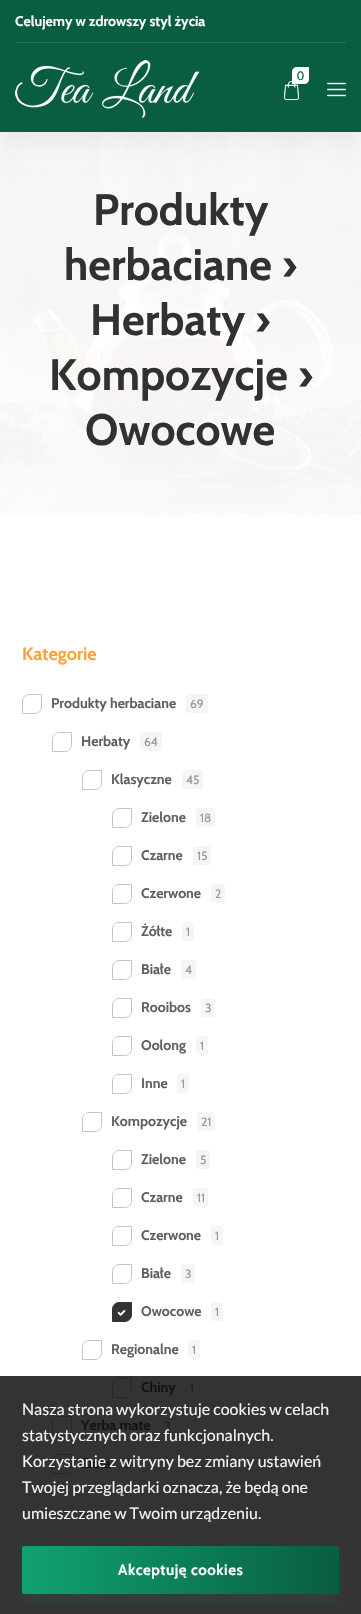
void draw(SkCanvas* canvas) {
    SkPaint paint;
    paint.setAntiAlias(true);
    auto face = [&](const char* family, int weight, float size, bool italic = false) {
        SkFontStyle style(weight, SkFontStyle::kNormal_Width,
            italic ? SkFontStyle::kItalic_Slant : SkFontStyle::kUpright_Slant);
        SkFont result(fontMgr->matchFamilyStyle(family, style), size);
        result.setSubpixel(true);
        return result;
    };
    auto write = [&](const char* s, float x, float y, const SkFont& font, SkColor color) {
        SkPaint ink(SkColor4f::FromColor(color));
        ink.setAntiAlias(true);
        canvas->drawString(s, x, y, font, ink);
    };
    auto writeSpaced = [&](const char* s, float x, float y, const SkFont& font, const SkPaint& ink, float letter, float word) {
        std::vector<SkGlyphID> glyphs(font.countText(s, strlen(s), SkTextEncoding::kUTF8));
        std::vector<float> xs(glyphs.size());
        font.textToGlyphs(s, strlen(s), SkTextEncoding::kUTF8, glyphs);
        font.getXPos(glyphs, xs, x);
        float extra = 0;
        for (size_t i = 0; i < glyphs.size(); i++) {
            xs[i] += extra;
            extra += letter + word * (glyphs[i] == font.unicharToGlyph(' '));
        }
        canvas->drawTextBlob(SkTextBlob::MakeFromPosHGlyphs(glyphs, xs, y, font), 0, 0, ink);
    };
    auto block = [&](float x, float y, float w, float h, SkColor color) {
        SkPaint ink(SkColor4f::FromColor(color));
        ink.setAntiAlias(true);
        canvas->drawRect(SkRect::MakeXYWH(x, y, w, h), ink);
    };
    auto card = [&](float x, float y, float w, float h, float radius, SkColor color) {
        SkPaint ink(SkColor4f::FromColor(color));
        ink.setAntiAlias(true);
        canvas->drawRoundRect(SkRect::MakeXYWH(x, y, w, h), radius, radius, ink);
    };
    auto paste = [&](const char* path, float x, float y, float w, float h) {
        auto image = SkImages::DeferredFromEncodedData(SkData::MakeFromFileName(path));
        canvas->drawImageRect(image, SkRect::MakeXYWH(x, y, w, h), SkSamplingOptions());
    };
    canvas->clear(SK_ColorWHITE);
    block(0, 1376, 361, 238, SkColorSetRGB(51, 51, 51));
    block(0, 0, 361, 53, SkColorSetRGB(9, 93, 64));
    block(15, 42, 331, 1, SkColorSetRGB(39, 112, 87));
    paste("pic4.png", 0, 132, 361, 383);
    paint.setColor(SkColorSetARGB(15, 0, 0, 0));
    paint.setMaskFilter(SkMaskFilter::MakeBlur(kNormal_SkBlurStyle, 12));
    canvas->drawRect(SkRect::MakeXYWH(0, 63, 361, 79), paint);
    paint.setMaskFilter(nullptr);
    auto kFont1 = face("Cabin", 700, 14);
    write("Celujemy w zdrowszy styl życia", 15, 26, kFont1, SK_ColorWHITE);
    block(0, 53, 361, 79, SkColorSetRGB(9, 93, 64));
    paste("pic1.png", 15, 60, 185, 58);
    paste("pic2.png", 284, 81, 16, 19);
    paint.setColor(SK_ColorWHITE);
    canvas->drawPath(SkPathBuilder().moveTo(297, 67).lineTo(309, 67).lineTo(309, 79).cubicTo(309, 82, 307, 84, 304, 84).lineTo(292, 84).lineTo(292, 72).cubicTo(292, 69, 294, 67, 297, 67).close().detach(), paint);
    auto kFont2 = face("Lato", 400, 12);
    write("0", 297, 80, kFont2, SkColorSetRGB(9, 93, 64));
    paste("pic3.png", 327, 82, 19, 15);
    auto kFont3 = face("Cabin", 700, 44);
    write("Produkty", 93, 225, kFont3, SkColorSetRGB(49, 49, 49));
    write("herbaciane ›", 64, 280, kFont3, SkColorSetRGB(49, 49, 49));
    write("Herbaty ›", 90, 335, kFont3, SkColorSetRGB(49, 49, 49));
    write("Kompozycje ›", 49, 390, kFont3, SkColorSetRGB(49, 49, 49));
    write("Owocowe", 85, 445, kFont3, SkColorSetRGB(49, 49, 49));
    auto kFont4 = face("Cabin", 700, 18);
    write("Kategorie", 22, 660, kFont4, SkColorSetRGB(255, 161, 54));
    paint.setStyle(SkPaint::kStroke_Style);
    paint.setStrokeWidth(1);
    paint.setColor(SkColorSetRGB(197, 197, 197));
    canvas->drawPath(SkPathBuilder().moveTo(29, 694.5f).lineTo(41.5f, 694.5f).lineTo(41.5f, 707).cubicTo(41.5f, 710.5f, 38.5f, 713.5f, 35, 713.5f).lineTo(22.5f, 713.5f).lineTo(22.5f, 701).cubicTo(22.5f, 697.5f, 25.5f, 694.5f, 29, 694.5f).close().detach(), paint);
    write("Produkty herbaciane", 51, 708, kFont1, SkColorSetRGB(95, 95, 95));
    card(186, 694, 22, 19, 3, SkColorSetRGB(245, 245, 245));
    auto kFont5 = face("Cabin", 400, 12);
    write("69", 190, 708, kFont5, SkColorSetRGB(149, 149, 149));
    canvas->drawPath(SkPathBuilder().moveTo(59, 732.5f).lineTo(71.5f, 732.5f).lineTo(71.5f, 745).cubicTo(71.5f, 748.5f, 68.5f, 751.5f, 65, 751.5f).lineTo(52.5f, 751.5f).lineTo(52.5f, 739).cubicTo(52.5f, 735.5f, 55.5f, 732.5f, 59, 732.5f).close().detach(), paint);
    write("Herbaty", 81, 746, kFont1, SkColorSetRGB(95, 95, 95));
    card(140, 732, 22, 19, 3, SkColorSetRGB(245, 245, 245));
    write("64", 144, 746, kFont5, SkColorSetRGB(149, 149, 149));
    canvas->drawPath(SkPathBuilder().moveTo(89, 770.5f).lineTo(101.5f, 770.5f).lineTo(101.5f, 783).cubicTo(101.5f, 786.5f, 98.5f, 789.5f, 95, 789.5f).lineTo(82.5f, 789.5f).lineTo(82.5f, 777).cubicTo(82.5f, 773.5f, 85.5f, 770.5f, 89, 770.5f).close().detach(), paint);
    write("Klasyczne", 111, 784, kFont1, SkColorSetRGB(95, 95, 95));
    card(182, 770, 21, 19, 3, SkColorSetRGB(245, 245, 245));
    write("45", 186, 784, kFont5, SkColorSetRGB(149, 149, 149));
    canvas->drawPath(SkPathBuilder().moveTo(119, 808.5f).lineTo(131.5f, 808.5f).lineTo(131.5f, 821).cubicTo(131.5f, 824.5f, 128.5f, 827.5f, 125, 827.5f).lineTo(112.5f, 827.5f).lineTo(112.5f, 815).cubicTo(112.5f, 811.5f, 115.5f, 808.5f, 119, 808.5f).close().detach(), paint);
    write("Zielone", 141, 822, kFont1, SkColorSetRGB(95, 95, 95));
    card(196, 808, 19, 19, 3, SkColorSetRGB(245, 245, 245));
    write("18", 200, 822, kFont5, SkColorSetRGB(149, 149, 149));
    canvas->drawPath(SkPathBuilder().moveTo(119, 846.5f).lineTo(131.5f, 846.5f).lineTo(131.5f, 859).cubicTo(131.5f, 862.5f, 128.5f, 865.5f, 125, 865.5f).lineTo(112.5f, 865.5f).lineTo(112.5f, 853).cubicTo(112.5f, 849.5f, 115.5f, 846.5f, 119, 846.5f).close().detach(), paint);
    write("Czarne", 141, 860, kFont1, SkColorSetRGB(95, 95, 95));
    card(193, 846, 18, 19, 3, SkColorSetRGB(245, 245, 245));
    write("15", 197, 860, kFont5, SkColorSetRGB(149, 149, 149));
    canvas->drawPath(SkPathBuilder().moveTo(119, 884.5f).lineTo(131.5f, 884.5f).lineTo(131.5f, 897).cubicTo(131.5f, 900.5f, 128.5f, 903.5f, 125, 903.5f).lineTo(112.5f, 903.5f).lineTo(112.5f, 891).cubicTo(112.5f, 887.5f, 115.5f, 884.5f, 119, 884.5f).close().detach(), paint);
    write("Czerwone", 141, 898, kFont1, SkColorSetRGB(95, 95, 95));
    card(211, 884, 14, 19, 3, SkColorSetRGB(245, 245, 245));
    write("2", 215, 898, kFont5, SkColorSetRGB(149, 149, 149));
    canvas->drawPath(SkPathBuilder().moveTo(119, 922.5f).lineTo(131.5f, 922.5f).lineTo(131.5f, 935).cubicTo(131.5f, 938.5f, 128.5f, 941.5f, 125, 941.5f).lineTo(112.5f, 941.5f).lineTo(112.5f, 929).cubicTo(112.5f, 925.5f, 115.5f, 922.5f, 119, 922.5f).close().detach(), paint);
    write("Żółte", 141, 936, kFont1, SkColorSetRGB(95, 95, 95));
    card(182, 922, 12, 19, 3, SkColorSetRGB(245, 245, 245));
    write("1", 186, 936, kFont5, SkColorSetRGB(149, 149, 149));
    canvas->drawPath(SkPathBuilder().moveTo(119, 960.5f).lineTo(131.5f, 960.5f).lineTo(131.5f, 973).cubicTo(131.5f, 976.5f, 128.5f, 979.5f, 125, 979.5f).lineTo(112.5f, 979.5f).lineTo(112.5f, 967).cubicTo(112.5f, 963.5f, 115.5f, 960.5f, 119, 960.5f).close().detach(), paint);
    write("Białe", 141, 974, kFont1, SkColorSetRGB(95, 95, 95));
    card(181, 960, 15, 19, 3, SkColorSetRGB(245, 245, 245));
    write("4", 185, 974, kFont5, SkColorSetRGB(149, 149, 149));
    canvas->drawPath(SkPathBuilder().moveTo(119, 998.5f).lineTo(131.5f, 998.5f).lineTo(131.5f, 1011).cubicTo(131.5f, 1014.5f, 128.5f, 1017.5f, 125, 1017.5f).lineTo(112.5f, 1017.5f).lineTo(112.5f, 1005).cubicTo(112.5f, 1001.5f, 115.5f, 998.5f, 119, 998.5f).close().detach(), paint);
    write("Rooibos", 141, 1012, kFont1, SkColorSetRGB(95, 95, 95));
    card(201, 998, 14, 19, 3, SkColorSetRGB(245, 245, 245));
    write("3", 205, 1012, kFont5, SkColorSetRGB(149, 149, 149));
    canvas->drawPath(SkPathBuilder().moveTo(119, 1036.5f).lineTo(131.5f, 1036.5f).lineTo(131.5f, 1049).cubicTo(131.5f, 1052.5f, 128.5f, 1055.5f, 125, 1055.5f).lineTo(112.5f, 1055.5f).lineTo(112.5f, 1043).cubicTo(112.5f, 1039.5f, 115.5f, 1036.5f, 119, 1036.5f).close().detach(), paint);
    write("Oolong", 141, 1050, kFont1, SkColorSetRGB(95, 95, 95));
    card(196, 1036, 12, 19, 3, SkColorSetRGB(245, 245, 245));
    write("1", 200, 1050, kFont5, SkColorSetRGB(149, 149, 149));
    canvas->drawPath(SkPathBuilder().moveTo(119, 1074.5f).lineTo(131.5f, 1074.5f).lineTo(131.5f, 1087).cubicTo(131.5f, 1090.5f, 128.5f, 1093.5f, 125, 1093.5f).lineTo(112.5f, 1093.5f).lineTo(112.5f, 1081).cubicTo(112.5f, 1077.5f, 115.5f, 1074.5f, 119, 1074.5f).close().detach(), paint);
    write("Inne", 141, 1088, kFont1, SkColorSetRGB(95, 95, 95));
    card(177, 1074, 12, 19, 3, SkColorSetRGB(245, 245, 245));
    write("1", 181, 1088, kFont5, SkColorSetRGB(149, 149, 149));
    canvas->drawPath(SkPathBuilder().moveTo(89, 1112.5f).lineTo(101.5f, 1112.5f).lineTo(101.5f, 1125).cubicTo(101.5f, 1128.5f, 98.5f, 1131.5f, 95, 1131.5f).lineTo(82.5f, 1131.5f).lineTo(82.5f, 1119).cubicTo(82.5f, 1115.5f, 85.5f, 1112.5f, 89, 1112.5f).close().detach(), paint);
    write("Kompozycje", 111, 1126, kFont1, SkColorSetRGB(95, 95, 95));
    card(197, 1112, 18, 19, 3, SkColorSetRGB(245, 245, 245));
    write("21", 201, 1126, kFont5, SkColorSetRGB(149, 149, 149));
    canvas->drawPath(SkPathBuilder().moveTo(119, 1150.5f).lineTo(131.5f, 1150.5f).lineTo(131.5f, 1163).cubicTo(131.5f, 1166.5f, 128.5f, 1169.5f, 125, 1169.5f).lineTo(112.5f, 1169.5f).lineTo(112.5f, 1157).cubicTo(112.5f, 1153.5f, 115.5f, 1150.5f, 119, 1150.5f).close().detach(), paint);
    write("Zielone", 141, 1164, kFont1, SkColorSetRGB(95, 95, 95));
    card(196, 1150, 14, 19, 3, SkColorSetRGB(245, 245, 245));
    write("5", 200, 1164, kFont5, SkColorSetRGB(149, 149, 149));
    canvas->drawPath(SkPathBuilder().moveTo(119, 1188.5f).lineTo(131.5f, 1188.5f).lineTo(131.5f, 1201).cubicTo(131.5f, 1204.5f, 128.5f, 1207.5f, 125, 1207.5f).lineTo(112.5f, 1207.5f).lineTo(112.5f, 1195).cubicTo(112.5f, 1191.5f, 115.5f, 1188.5f, 119, 1188.5f).close().detach(), paint);
    write("Czarne", 141, 1202, kFont1, SkColorSetRGB(95, 95, 95));
    card(193, 1188, 15, 19, 3, SkColorSetRGB(245, 245, 245));
    write("11", 197, 1202, kFont5, SkColorSetRGB(149, 149, 149));
    canvas->drawPath(SkPathBuilder().moveTo(119, 1226.5f).lineTo(131.5f, 1226.5f).lineTo(131.5f, 1239).cubicTo(131.5f, 1242.5f, 128.5f, 1245.5f, 125, 1245.5f).lineTo(112.5f, 1245.5f).lineTo(112.5f, 1233).cubicTo(112.5f, 1229.5f, 115.5f, 1226.5f, 119, 1226.5f).close().detach(), paint);
    write("Czerwone", 141, 1240, kFont1, SkColorSetRGB(95, 95, 95));
    card(211, 1226, 12, 19, 3, SkColorSetRGB(245, 245, 245));
    write("1", 215, 1240, kFont5, SkColorSetRGB(149, 149, 149));
    canvas->drawPath(SkPathBuilder().moveTo(119, 1264.5f).lineTo(131.5f, 1264.5f).lineTo(131.5f, 1277).cubicTo(131.5f, 1280.5f, 128.5f, 1283.5f, 125, 1283.5f).lineTo(112.5f, 1283.5f).lineTo(112.5f, 1271).cubicTo(112.5f, 1267.5f, 115.5f, 1264.5f, 119, 1264.5f).close().detach(), paint);
    write("Białe", 141, 1278, kFont1, SkColorSetRGB(95, 95, 95));
    card(181, 1264, 14, 19, 3, SkColorSetRGB(245, 245, 245));
    write("3", 185, 1278, kFont5, SkColorSetRGB(149, 149, 149));
    paint.setStyle(SkPaint::kFill_Style);
    paint.setColor(SkColorSetRGB(51, 51, 51));
    canvas->drawPath(SkPathBuilder().moveTo(119, 1302.5f).lineTo(131.5f, 1302.5f).lineTo(131.5f, 1315).cubicTo(131.5f, 1318.5f, 128.5f, 1321.5f, 125, 1321.5f).lineTo(112.5f, 1321.5f).lineTo(112.5f, 1309).cubicTo(112.5f, 1305.5f, 115.5f, 1302.5f, 119, 1302.5f).close().detach(), paint);
    paint.setStyle(SkPaint::kStroke_Style);
    canvas->drawPath(SkPathBuilder().moveTo(119, 1302.5f).lineTo(131.5f, 1302.5f).lineTo(131.5f, 1315).cubicTo(131.5f, 1318.5f, 128.5f, 1321.5f, 125, 1321.5f).lineTo(112.5f, 1321.5f).lineTo(112.5f, 1309).cubicTo(112.5f, 1305.5f, 115.5f, 1302.5f, 119, 1302.5f).close().detach(), paint);
    paste("pic5.png", 117, 1310, 9, 6);
    write("Owocowe", 141, 1316, kFont1, SkColorSetRGB(95, 95, 95));
    card(211, 1302, 12, 19, 3, SkColorSetRGB(245, 245, 245));
    write("1", 215, 1316, kFont5, SkColorSetRGB(149, 149, 149));
    paint.setColor(SkColorSetRGB(197, 197, 197));
    canvas->drawPath(SkPathBuilder().moveTo(89, 1340.5f).lineTo(101.5f, 1340.5f).lineTo(101.5f, 1353).cubicTo(101.5f, 1356.5f, 98.5f, 1359.5f, 95, 1359.5f).lineTo(82.5f, 1359.5f).lineTo(82.5f, 1347).cubicTo(82.5f, 1343.5f, 85.5f, 1340.5f, 89, 1340.5f).close().detach(), paint);
    write("Regionalne", 111, 1354, kFont1, SkColorSetRGB(95, 95, 95));
    card(188, 1340, 12, 19, 3, SkColorSetRGB(245, 245, 245));
    write("1", 192, 1354, kFont5, SkColorSetRGB(149, 149, 149));
    paint.setColor(SkColorSetRGB(39, 39, 39));
    canvas->drawPath(SkPathBuilder().moveTo(119, 1378.5f).lineTo(131.5f, 1378.5f).lineTo(131.5f, 1391).cubicTo(131.5f, 1394.5f, 128.5f, 1397.5f, 125, 1397.5f).lineTo(112.5f, 1397.5f).lineTo(112.5f, 1385).cubicTo(112.5f, 1381.5f, 115.5f, 1378.5f, 119, 1378.5f).close().detach(), paint);
    write("Chiny", 141, 1392, kFont1, SkColorSetRGB(19, 19, 19));
    write("1", 190, 1392, kFont5, SkColorSetRGB(30, 30, 30));
    canvas->drawPath(SkPathBuilder().moveTo(59, 1416.5f).lineTo(71.5f, 1416.5f).lineTo(71.5f, 1429).cubicTo(71.5f, 1432.5f, 68.5f, 1435.5f, 65, 1435.5f).lineTo(52.5f, 1435.5f).lineTo(52.5f, 1423).cubicTo(52.5f, 1419.5f, 55.5f, 1416.5f, 59, 1416.5f).close().detach(), paint);
    write("Yerba mate", 81, 1430, kFont1, SkColorSetRGB(19, 19, 19));
    write("3", 164, 1430, kFont5, SkColorSetRGB(30, 30, 30));
    canvas->drawPath(SkPathBuilder().moveTo(59, 1454.5f).lineTo(71.5f, 1454.5f).lineTo(71.5f, 1467).cubicTo(71.5f, 1470.5f, 68.5f, 1473.5f, 65, 1473.5f).lineTo(52.5f, 1473.5f).lineTo(52.5f, 1461).cubicTo(52.5f, 1457.5f, 55.5f, 1454.5f, 59, 1454.5f).close().detach(), paint);
    write("Zioła", 81, 1468, kFont1, SkColorSetRGB(19, 19, 19));
    write("2", 124, 1468, kFont5, SkColorSetRGB(30, 30, 30));
    paste("pic6.png", 216, 1594, 3, 1);
    auto kFont6 = face("Lato", 400, 16);
    write("Nasza strona wykorzystuje cookies w celach", 22, 1415, kFont6, SkColorSetRGB(245, 245, 245));
    write("statystycznych oraz funkcjonalnych.", 22, 1441, kFont6, SkColorSetRGB(245, 245, 245));
    write("Korzystanie z witryny bez zmiany ustawień", 22, 1467, kFont6, SkColorSetRGB(245, 245, 245));
    write("Twojej przeglądarki oznacza, że będą one", 22, 1493, kFont6, SkColorSetRGB(245, 245, 245));
    write("umieszczane w Twoim urządzeniu.", 22, 1519, kFont6, SkColorSetRGB(245, 245, 245));
    paint.setStyle(SkPaint::kFill_Style);
    paint.setColor(SkColorSetARGB(26, 16, 163, 112));
    paint.setMaskFilter(SkMaskFilter::MakeBlur(kNormal_SkBlurStyle, 5));
    canvas->drawRoundRect(SkRect::MakeXYWH(22, 1556, 317, 48), 2, 2, paint);
    paint.setMaskFilter(nullptr);
    {
        const SkColor colors[] = {SkColorSetRGB(16, 163, 112), SkColorSetRGB(9, 93, 64)};
        const float stops[] = {0, 1};
        const SkPoint ends[] = {{22, 1570}, {339, 1570}};
        paint.setShader(SkGradientShader::MakeLinear(ends, colors, stops, 2, SkTileMode::kClamp));
        paint.setAlpha(255);
    }
    canvas->drawRoundRect(SkRect::MakeXYWH(22, 1546, 317, 48), 2, 2, paint);
    auto kFont7 = face("Cabin", 700, 15);
    paint.setShader(nullptr);
    paint.setColor(SK_ColorWHITE);
    writeSpaced("Akceptuję cookies", 118, 1575, kFont7, paint, 0.5f, 0);
}
